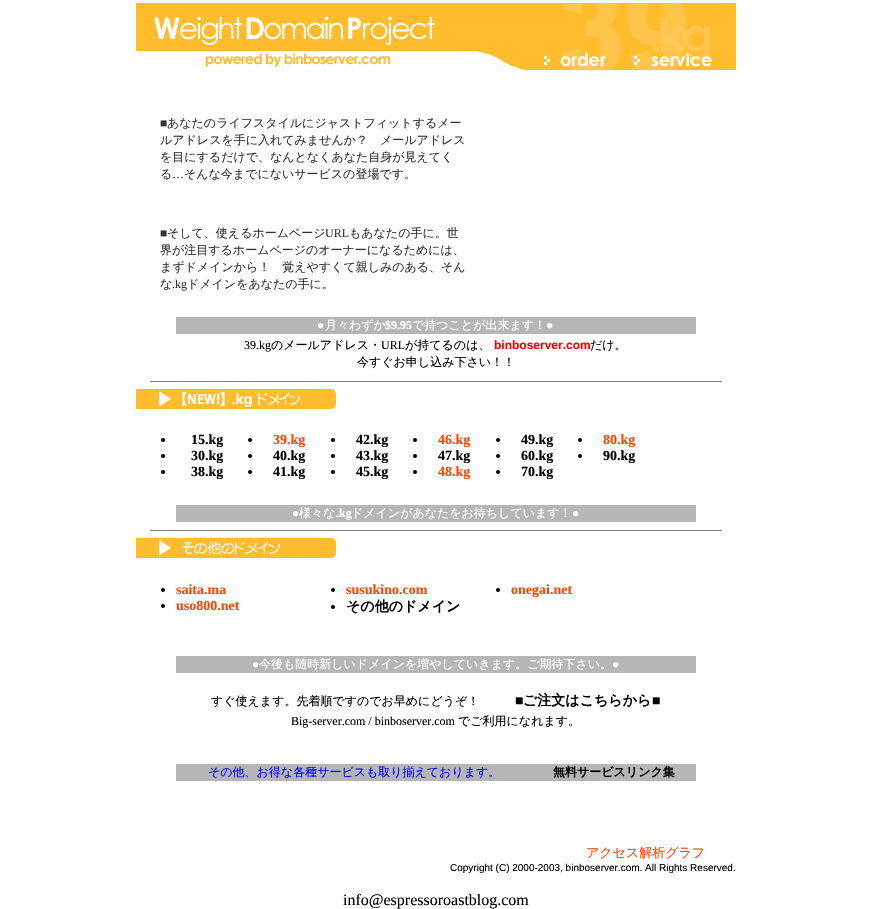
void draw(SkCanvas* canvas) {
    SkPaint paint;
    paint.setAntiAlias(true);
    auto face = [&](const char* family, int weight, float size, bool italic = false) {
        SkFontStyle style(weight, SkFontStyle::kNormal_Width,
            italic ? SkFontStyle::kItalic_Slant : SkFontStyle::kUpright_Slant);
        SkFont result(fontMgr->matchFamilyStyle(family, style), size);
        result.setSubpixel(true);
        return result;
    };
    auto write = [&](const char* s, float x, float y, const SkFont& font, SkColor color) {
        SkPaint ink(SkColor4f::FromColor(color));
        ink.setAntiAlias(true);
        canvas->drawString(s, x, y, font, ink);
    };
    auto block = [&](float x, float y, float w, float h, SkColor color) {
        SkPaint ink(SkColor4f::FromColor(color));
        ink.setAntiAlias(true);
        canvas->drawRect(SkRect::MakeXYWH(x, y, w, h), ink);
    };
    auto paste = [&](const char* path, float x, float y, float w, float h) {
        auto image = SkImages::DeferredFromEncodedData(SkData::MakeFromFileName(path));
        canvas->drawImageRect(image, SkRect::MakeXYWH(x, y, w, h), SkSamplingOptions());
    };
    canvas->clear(SK_ColorWHITE);
    paste("pic1.png", 136, 3, 600, 48);
    paste("pic2.png", 205, 53, 186, 14);
    paste("pic3.png", 474, 51, 55, 19);
    paste("pic4.png", 529, 51, 97, 19);
    paste("pic5.png", 626, 51, 110, 19);
    auto kFont1 = face("Liberation Serif", 400, 12);
    write("■", 160, 127, kFont1, SkColorSetRGB(51, 51, 51));
    auto kFont2 = face("WenQuanYi Zen Hei", 500, 12);
    write("あなたのライフスタイルにジャストフィットするメー", 167, 127, kFont2, SkColorSetRGB(51, 51, 51));
    write("ルアドレスを手に入れてみませんか？　メールアドレス", 160, 144, kFont2, SkColorSetRGB(51, 51, 51));
    write("を目にするだけで、なんとなくあなた自身が見えてく", 160, 161, kFont2, SkColorSetRGB(51, 51, 51));
    write("る", 160, 178, kFont2, SkColorSetRGB(51, 51, 51));
    write("…", 172, 178, kFont1, SkColorSetRGB(51, 51, 51));
    write("そんな今までにないサービスの登場です。", 184, 178, kFont2, SkColorSetRGB(51, 51, 51));
    write("■", 160, 237, kFont1, SkColorSetRGB(51, 51, 51));
    write("そして、使えるホームページ", 167, 237, kFont2, SkColorSetRGB(51, 51, 51));
    write("URL", 325, 237, kFont1, SkColorSetRGB(51, 51, 51));
    write("もあなたの手に。世", 349, 237, kFont2, SkColorSetRGB(51, 51, 51));
    write("界が注目するホームページのオーナーになるためには、", 160, 254, kFont2, SkColorSetRGB(51, 51, 51));
    write("まずドメインから！　覚えやすくて親しみのある、そん", 160, 271, kFont2, SkColorSetRGB(51, 51, 51));
    write("な", 160, 288, kFont2, SkColorSetRGB(51, 51, 51));
    write(".kg", 172, 288, kFont1, SkColorSetRGB(51, 51, 51));
    write("ドメインをあなたの手に。", 187, 288, kFont2, SkColorSetRGB(51, 51, 51));
    block(176, 317, 520, 17, SkColorSetRGB(182, 182, 182));
    write("●", 317, 329, kFont1, SK_ColorWHITE);
    write("月々わずか", 325, 329, kFont2, SK_ColorWHITE);
    auto kFont3 = face("Liberation Serif", 700, 12);
    write("$9.95", 385, 329, kFont3, SK_ColorWHITE);
    write("で持つことが出来ます！", 412, 329, kFont2, SK_ColorWHITE);
    write("●", 546, 329, kFont1, SK_ColorWHITE);
    write("39.kg", 244, 349, kFont1, SK_ColorBLACK);
    write("のメールアドレス・", 271, 349, kFont2, SK_ColorBLACK);
    write("URL", 381, 349, kFont1, SK_ColorBLACK);
    write("が持てるのは、", 405, 349, kFont2, SK_ColorBLACK);
    auto kFont4 = face("Liberation Sans", 700, 12);
    write("binboserver.com", 494, 349, kFont4, SkColorSetRGB(255, 0, 0));
    write("だけ。", 590, 349, kFont2, SK_ColorBLACK);
    write("今すぐお申し込み下さい！！", 357, 366, kFont2, SK_ColorBLACK);
    block(150, 381, 572, 1, SkColorSetRGB(128, 128, 128));
    paste("pic6.png", 136, 389, 200, 20);
    paint.setColor(SK_ColorBLACK);
    canvas->drawCircle(163, 440, 2, paint);
    auto kFont5 = face("Liberation Serif", 700, 14);
    write("15.kg", 191, 444, kFont5, SK_ColorBLACK);
    canvas->drawCircle(163, 456, 2, paint);
    write("30.kg", 191, 460, kFont5, SK_ColorBLACK);
    canvas->drawCircle(163, 472, 2, paint);
    write("38.kg", 191, 476, kFont5, SK_ColorBLACK);
    canvas->drawCircle(250, 440, 2, paint);
    write("39.kg", 273, 444, kFont5, SkColorSetRGB(255, 69, 0));
    canvas->drawCircle(250, 456, 2, paint);
    write("40.kg", 273, 460, kFont5, SK_ColorBLACK);
    canvas->drawCircle(250, 472, 2, paint);
    write("41.kg", 273, 476, kFont5, SK_ColorBLACK);
    canvas->drawCircle(333, 440, 2, paint);
    write("42.kg", 356, 444, kFont5, SK_ColorBLACK);
    canvas->drawCircle(333, 456, 2, paint);
    write("43.kg", 356, 460, kFont5, SK_ColorBLACK);
    canvas->drawCircle(333, 472, 2, paint);
    write("45.kg", 356, 476, kFont5, SK_ColorBLACK);
    canvas->drawCircle(415, 440, 2, paint);
    write("46.kg", 438, 444, kFont5, SkColorSetRGB(255, 69, 0));
    canvas->drawCircle(415, 456, 2, paint);
    write("47.kg", 438, 460, kFont5, SK_ColorBLACK);
    canvas->drawCircle(415, 472, 2, paint);
    write("48.kg", 438, 476, kFont5, SkColorSetRGB(255, 69, 0));
    canvas->drawCircle(498, 440, 2, paint);
    write("49.kg", 521, 444, kFont5, SK_ColorBLACK);
    canvas->drawCircle(498, 456, 2, paint);
    write("60.kg", 521, 460, kFont5, SK_ColorBLACK);
    canvas->drawCircle(498, 472, 2, paint);
    write("70.kg", 521, 476, kFont5, SK_ColorBLACK);
    canvas->drawCircle(580, 440, 2, paint);
    write("80.kg", 603, 444, kFont5, SkColorSetRGB(255, 69, 0));
    canvas->drawCircle(580, 456, 2, paint);
    write("90.kg", 603, 460, kFont5, SK_ColorBLACK);
    block(176, 505, 520, 17, SkColorSetRGB(182, 182, 182));
    write("●", 292, 517, kFont1, SK_ColorWHITE);
    write("様々な", 299, 517, kFont2, SK_ColorWHITE);
    write(".kg", 336, 517, kFont3, SK_ColorWHITE);
    write("ドメインがあなたをお待ちしています！", 351, 517, kFont2, SK_ColorWHITE);
    write("●", 572, 517, kFont1, SK_ColorWHITE);
    block(150, 530, 572, 1, SkColorSetRGB(128, 128, 128));
    paste("pic7.png", 136, 538, 200, 20);
    canvas->drawCircle(163, 590, 2, paint);
    write("saita.ma", 176, 594, kFont5, SkColorSetRGB(255, 69, 0));
    canvas->drawCircle(163, 606, 2, paint);
    write("uso800.net", 176, 610, kFont5, SkColorSetRGB(255, 69, 0));
    canvas->drawCircle(333, 590, 2, paint);
    write("susukino.com", 346, 594, kFont5, SkColorSetRGB(255, 69, 0));
    canvas->drawCircle(333, 607, 2, paint);
    auto kFont6 = face("WenQuanYi Zen Hei", 700, 14);
    write("その他のドメイン", 346, 611, kFont6, SK_ColorBLACK);
    canvas->drawCircle(498, 590, 2, paint);
    write("onegai.net", 511, 594, kFont5, SkColorSetRGB(255, 69, 0));
    block(176, 656, 520, 17, SkColorSetRGB(182, 182, 182));
    write("●", 252, 668, kFont1, SK_ColorWHITE);
    write("今後も随時新しいドメインを増やしていきます。ご期待下さい。", 259, 668, kFont2, SK_ColorWHITE);
    write("●", 612, 668, kFont1, SK_ColorWHITE);
    write("すぐ使えます。先着順ですのでお早めにどうぞ！", 211, 705, kFont2, SK_ColorBLACK);
    write("■", 515, 705, kFont5, SK_ColorBLACK);
    write("ご注文はこちらから", 523, 705, kFont6, SK_ColorBLACK);
    write("■", 652, 705, kFont5, SK_ColorBLACK);
    write("Big-server.com / binboserver.com", 291, 725, kFont1, SK_ColorBLACK);
    write("でご利用になれます。", 458, 725, kFont2, SK_ColorBLACK);
    block(176, 764, 520, 17, SkColorSetRGB(182, 182, 182));
    write("その他、お得な各種サービスも取り揃えております。", 208, 776, kFont2, SkColorSetRGB(0, 0, 255));
    auto kFont7 = face("WenQuanYi Zen Hei", 700, 12);
    write("無料サービスリンク集", 553, 776, kFont7, SK_ColorBLACK);
    auto kFont8 = face("WenQuanYi Zen Hei", 500, 13);
    write("アクセス解析グラフ", 586, 857, kFont8, SkColorSetRGB(255, 69, 0));
    auto kFont9 = face("Liberation Sans", 400, 10);
    write("Copyright (C) 2000-2003, binboserver.com. All Rights Reserved.", 450, 871, kFont9, SK_ColorBLACK);
    auto kFont10 = face("Liberation Serif", 400, 16);
    write("info@espressoroastblog.com", 343, 905, kFont10, SK_ColorBLACK);
}
